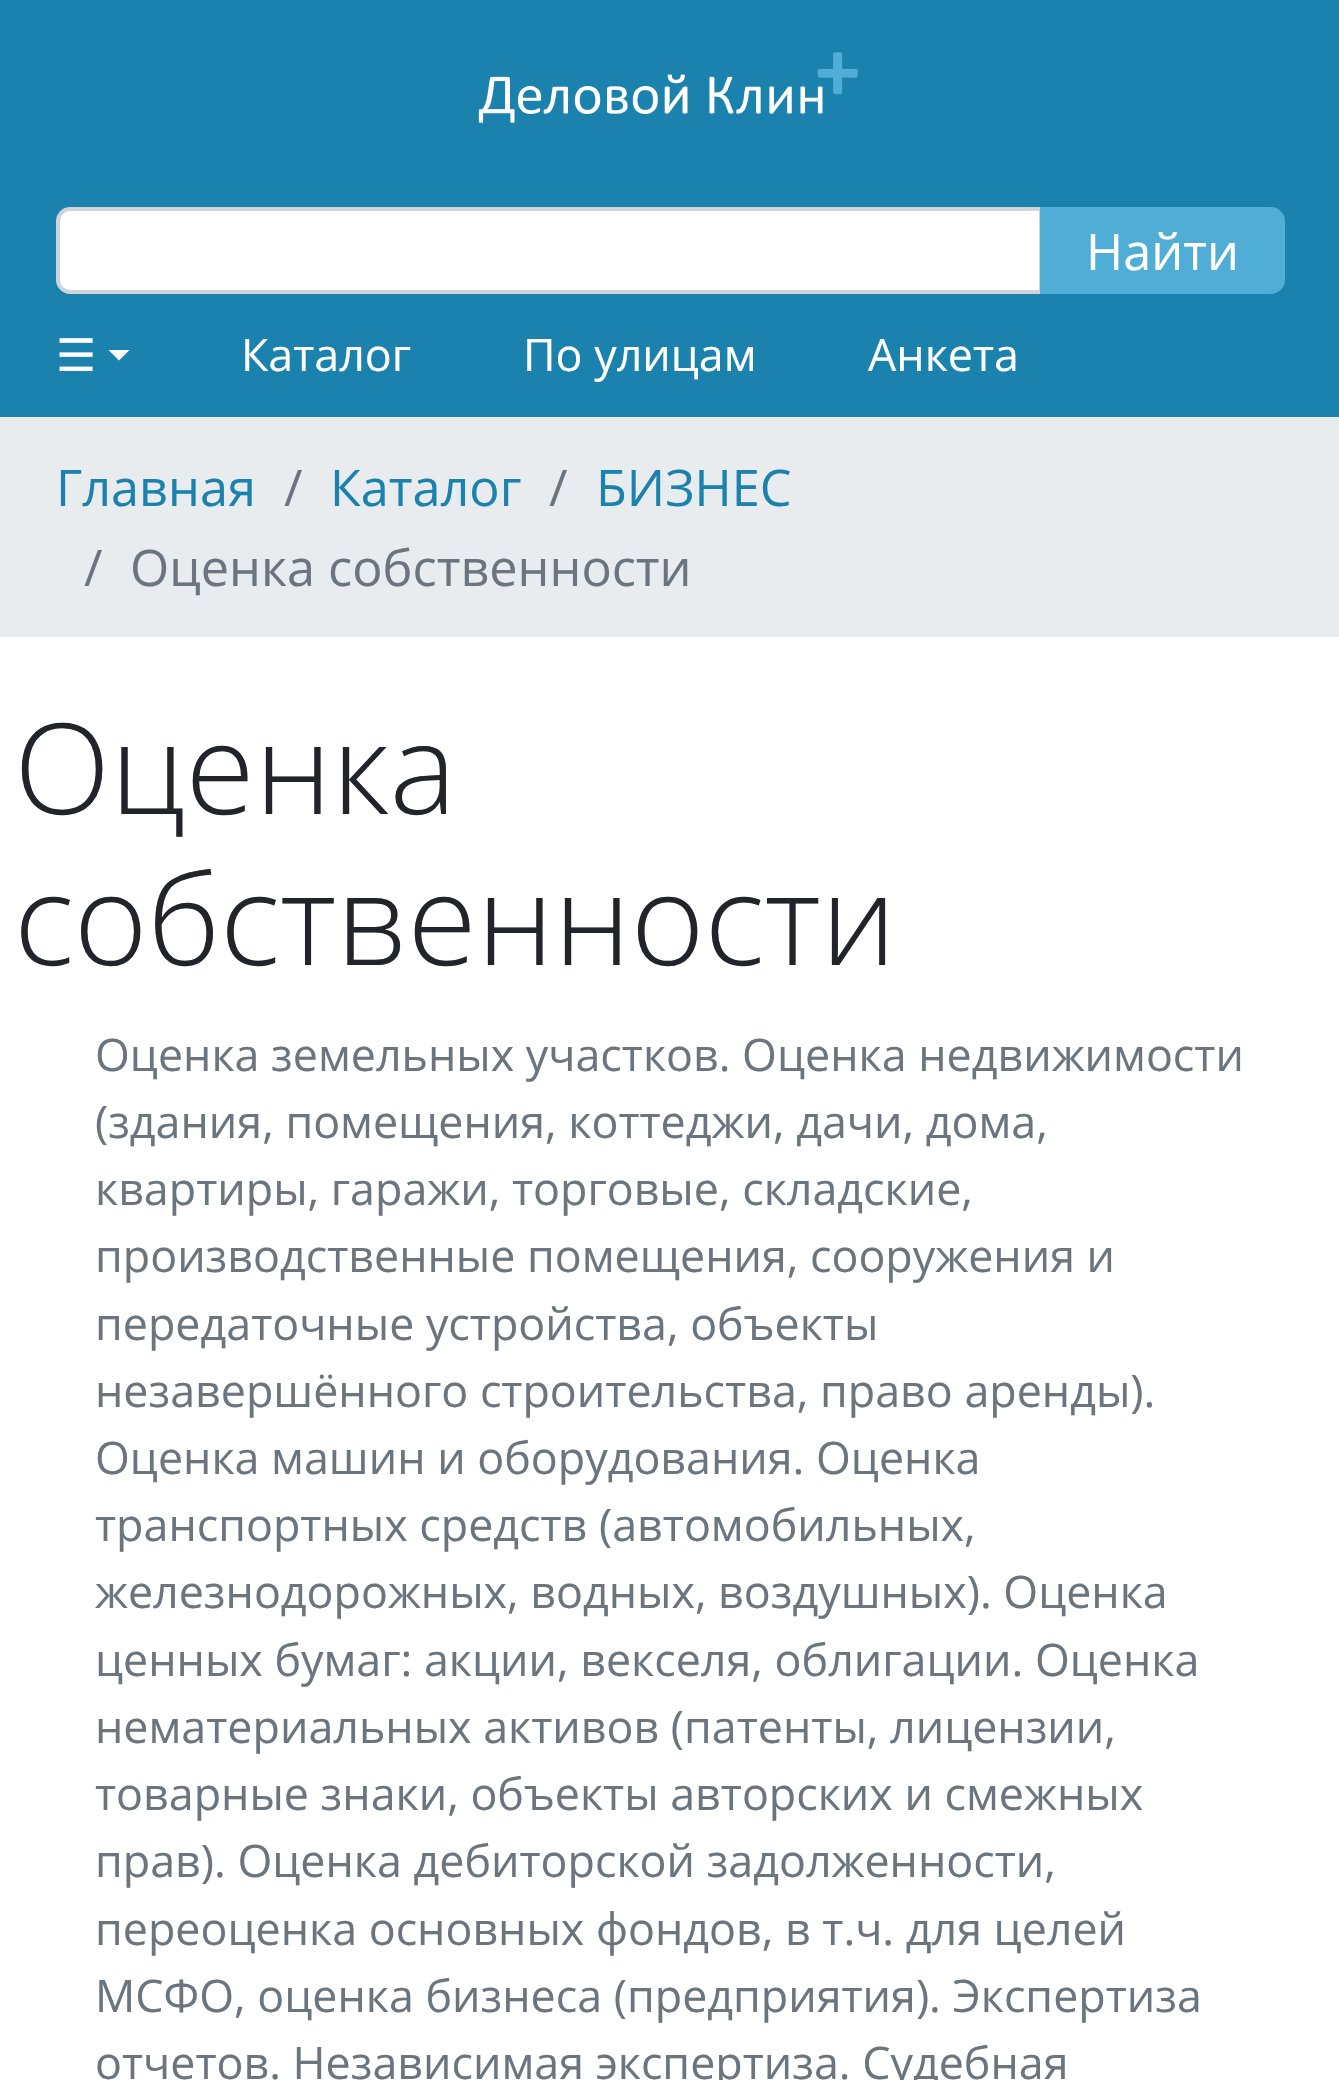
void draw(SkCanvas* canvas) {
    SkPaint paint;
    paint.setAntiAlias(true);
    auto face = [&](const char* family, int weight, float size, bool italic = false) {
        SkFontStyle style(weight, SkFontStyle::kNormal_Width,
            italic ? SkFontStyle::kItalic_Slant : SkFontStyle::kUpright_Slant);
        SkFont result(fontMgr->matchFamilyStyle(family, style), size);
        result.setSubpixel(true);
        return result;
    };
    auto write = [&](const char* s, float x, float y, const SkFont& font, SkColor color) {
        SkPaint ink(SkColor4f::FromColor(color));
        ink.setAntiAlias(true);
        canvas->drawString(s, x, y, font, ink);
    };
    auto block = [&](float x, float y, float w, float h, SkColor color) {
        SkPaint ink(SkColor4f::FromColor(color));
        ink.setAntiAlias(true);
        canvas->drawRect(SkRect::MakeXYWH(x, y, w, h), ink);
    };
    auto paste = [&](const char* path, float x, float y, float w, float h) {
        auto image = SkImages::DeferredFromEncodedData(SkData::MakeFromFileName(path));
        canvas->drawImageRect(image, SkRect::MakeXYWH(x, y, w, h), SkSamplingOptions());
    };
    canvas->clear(SK_ColorWHITE);
    block(0, 0, 1339, 417, SkColorSetRGB(27, 129, 173));
    paste("pic1.png", 478, 52, 380, 71);
    paint.setColor(SK_ColorWHITE);
    canvas->drawPath(SkPathBuilder().moveTo(70, 209).lineTo(1041, 209).lineTo(1041, 292).lineTo(70, 292).cubicTo(63.5f, 292, 58, 286.5f, 58, 280).lineTo(58, 221).cubicTo(58, 214.5f, 63.5f, 209, 70, 209).close().detach(), paint);
    paint.setStyle(SkPaint::kStroke_Style);
    paint.setStrokeWidth(4);
    paint.setColor(SkColorSetRGB(206, 212, 218));
    canvas->drawPath(SkPathBuilder().moveTo(70, 209).lineTo(1041, 209).lineTo(1041, 292).lineTo(70, 292).cubicTo(63.5f, 292, 58, 286.5f, 58, 280).lineTo(58, 221).cubicTo(58, 214.5f, 63.5f, 209, 70, 209).close().detach(), paint);
    paint.setStyle(SkPaint::kFill_Style);
    paint.setColor(SkColorSetRGB(79, 173, 214));
    canvas->drawPath(SkPathBuilder().moveTo(1042, 209).lineTo(1271, 209).cubicTo(1277.5f, 209, 1283, 214.5f, 1283, 221).lineTo(1283, 280).cubicTo(1283, 286.5f, 1277.5f, 292, 1271, 292).lineTo(1042, 292).close().detach(), paint);
    paint.setStyle(SkPaint::kStroke_Style);
    canvas->drawPath(SkPathBuilder().moveTo(1042, 209).lineTo(1271, 209).cubicTo(1277.5f, 209, 1283, 214.5f, 1283, 221).lineTo(1283, 280).cubicTo(1283, 286.5f, 1277.5f, 292, 1271, 292).lineTo(1042, 292).close().detach(), paint);
    auto kFont1 = face("Open Sans", 400, 50.4f);
    write("Найти", 1086, 270, kFont1, SK_ColorWHITE);
    auto kFont2 = face("DejaVu Sans", 400, 44.8f);
    write("☰", 56, 371, kFont2, SK_ColorWHITE);
    paint.setStyle(SkPaint::kFill_Style);
    paint.setColor(SK_ColorWHITE);
    canvas->drawPath(SkPathBuilder().moveTo(108.5f, 350).lineTo(129.5f, 350).lineTo(119, 360.5f).close().detach(), paint);
    auto kFont3 = face("Open Sans", 400, 44.8f);
    write("Каталог", 241, 371, kFont3, SK_ColorWHITE);
    write("По улицам", 523, 371, kFont3, SK_ColorWHITE);
    write("Анкета", 868, 371, kFont3, SK_ColorWHITE);
    block(0, 417, 1339, 220, SkColorSetRGB(233, 236, 239));
    write("Главная", 56, 506, kFont1, SkColorSetRGB(27, 129, 173));
    write("/", 284, 506, kFont1, SkColorSetRGB(108, 117, 125));
    write("Каталог", 330, 506, kFont1, SkColorSetRGB(27, 129, 173));
    write("/", 549, 506, kFont1, SkColorSetRGB(108, 117, 125));
    write("БИЗНЕС", 596, 506, kFont1, SkColorSetRGB(27, 129, 173));
    write("/", 84, 586, kFont1, SkColorSetRGB(108, 117, 125));
    write("Оценка собственности", 130, 586, kFont1, SkColorSetRGB(108, 117, 125));
    auto kFont4 = face("Open Sans", 300, 126);
    write("Оценка", 14, 814, kFont4, SkColorSetRGB(33, 37, 41));
    write("собственности", 14, 965, kFont4, SkColorSetRGB(33, 37, 41));
    write("Оценка земельных участков. Оценка недвижимости", 95, 1071, kFont3, SkColorSetRGB(108, 117, 125));
    write("(здания, помещения, коттеджи, дачи, дома,", 95, 1138, kFont3, SkColorSetRGB(108, 117, 125));
    write("квартиры, гаражи, торговые, складские,", 95, 1205, kFont3, SkColorSetRGB(108, 117, 125));
    write("производственные помещения, сооружения и", 95, 1272, kFont3, SkColorSetRGB(108, 117, 125));
    write("передаточные устройства, объекты", 95, 1340, kFont3, SkColorSetRGB(108, 117, 125));
    write("незавершённого строительства, право аренды).", 95, 1407, kFont3, SkColorSetRGB(108, 117, 125));
    write("Оценка машин и оборудования. Оценка", 95, 1474, kFont3, SkColorSetRGB(108, 117, 125));
    write("транспортных средств (автомобильных,", 95, 1541, kFont3, SkColorSetRGB(108, 117, 125));
    write("железнодорожных, водных, воздушных). Оценка", 95, 1608, kFont3, SkColorSetRGB(108, 117, 125));
    write("ценных бумаг: акции, векселя, облигации. Оценка", 95, 1676, kFont3, SkColorSetRGB(108, 117, 125));
    write("нематериальных активов (патенты, лицензии,", 95, 1743, kFont3, SkColorSetRGB(108, 117, 125));
    write("товарные знаки, объекты авторских и смежных", 95, 1810, kFont3, SkColorSetRGB(108, 117, 125));
    write("прав). Оценка дебиторской задолженности,", 95, 1877, kFont3, SkColorSetRGB(108, 117, 125));
    write("переоценка основных фондов, в т.ч. для целей", 95, 1945, kFont3, SkColorSetRGB(108, 117, 125));
    write("МСФО, оценка бизнеса (предприятия). Экспертиза", 95, 2012, kFont3, SkColorSetRGB(108, 117, 125));
    write("отчетов. Независимая экспертиза. Судебная", 95, 2079, kFont3, SkColorSetRGB(108, 117, 125));
}
